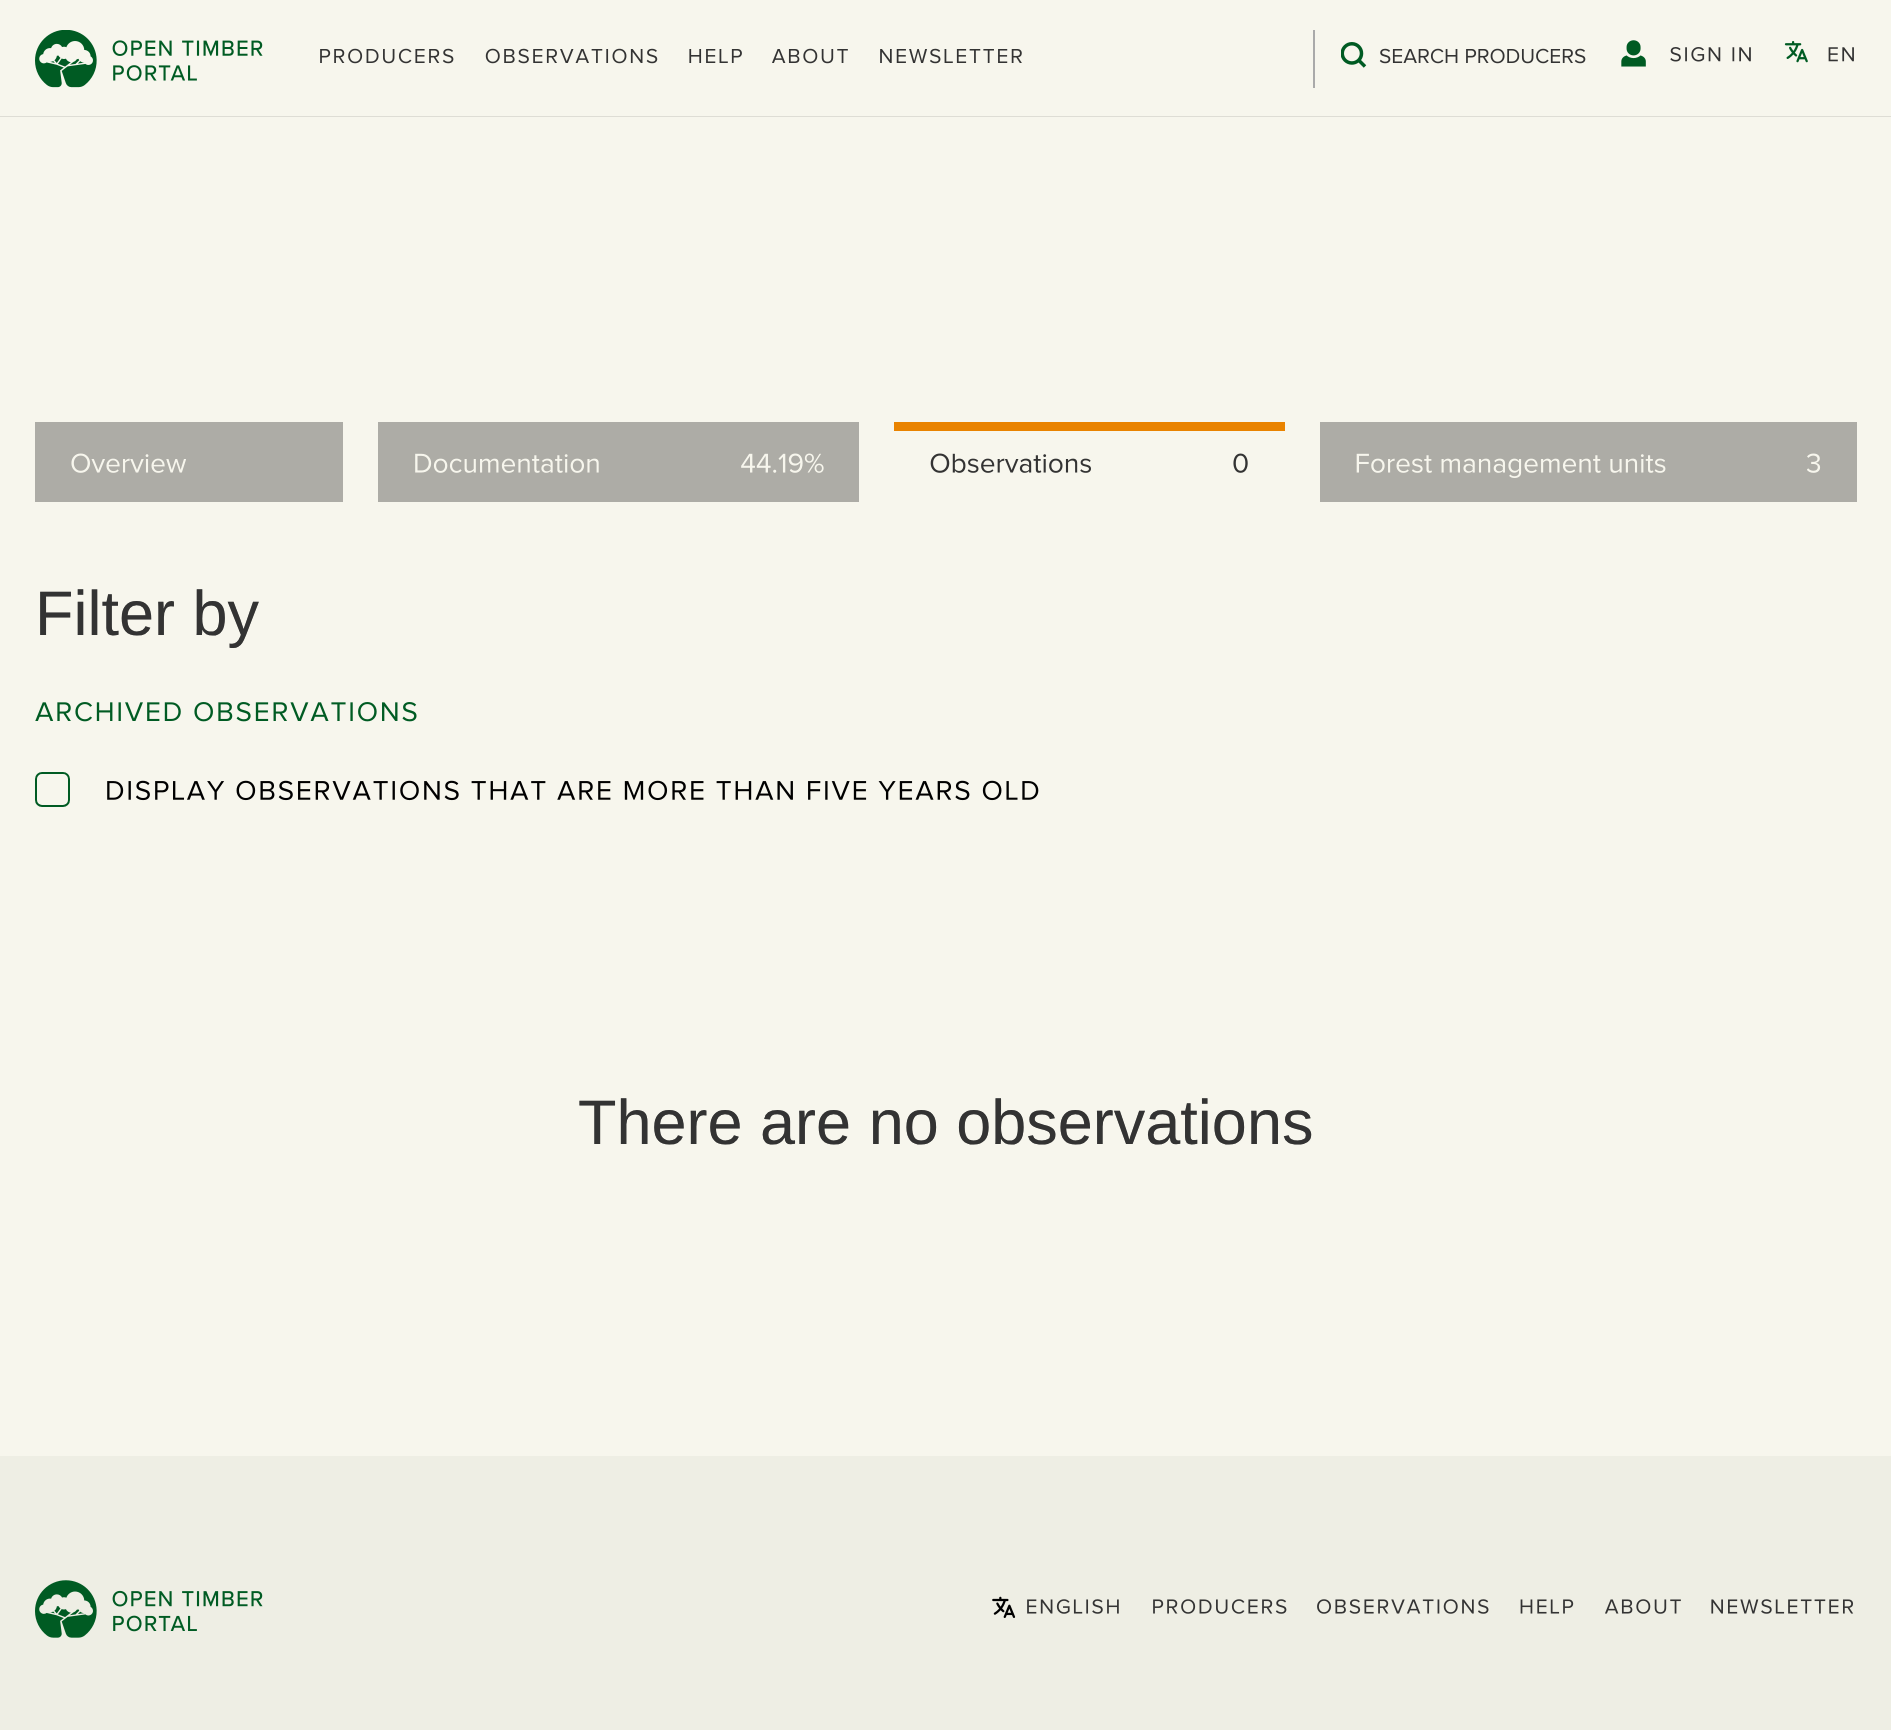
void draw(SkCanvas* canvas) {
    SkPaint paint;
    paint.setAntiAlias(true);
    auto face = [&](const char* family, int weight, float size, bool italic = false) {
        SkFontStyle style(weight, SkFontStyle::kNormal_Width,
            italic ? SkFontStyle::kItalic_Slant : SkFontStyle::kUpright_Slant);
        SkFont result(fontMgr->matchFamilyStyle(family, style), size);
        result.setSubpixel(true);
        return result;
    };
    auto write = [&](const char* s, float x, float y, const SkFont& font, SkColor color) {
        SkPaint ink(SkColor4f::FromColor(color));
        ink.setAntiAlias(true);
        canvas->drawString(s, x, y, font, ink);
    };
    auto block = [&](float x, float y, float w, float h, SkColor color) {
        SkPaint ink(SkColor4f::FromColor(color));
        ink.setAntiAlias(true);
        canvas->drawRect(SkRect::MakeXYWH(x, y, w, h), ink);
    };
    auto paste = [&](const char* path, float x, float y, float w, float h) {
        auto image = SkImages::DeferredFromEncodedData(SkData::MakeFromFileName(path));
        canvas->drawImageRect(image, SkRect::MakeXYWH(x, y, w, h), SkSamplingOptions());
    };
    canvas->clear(SkColorSetRGB(247, 246, 237));
    paint.setColor(SkColorSetRGB(222, 221, 213));
    canvas->drawPath(SkPathBuilder().moveTo(0, 116).lineTo(0, 117).lineTo(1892, 117).lineTo(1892, 2).lineTo(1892, 116).close().detach(), paint);
    paste("pic1.png", 35, 30, 228, 58);
    paste("pic2.png", 320, 48, 134, 16);
    paste("pic3.png", 485, 48, 173, 16);
    paste("pic4.png", 689, 49, 53, 14);
    paste("pic5.png", 772, 48, 76, 16);
    paste("pic6.png", 880, 48, 142, 16);
    block(1313, 30, 2, 58, SkColorSetRGB(170, 170, 170));
    paste("pic7.png", 1341, 42, 26, 26);
    paste("pic8.png", 1379, 48, 207, 16);
    paste("pic9.png", 1621, 40, 25, 27);
    paste("pic10.png", 1670, 47, 81, 15);
    paste("pic11.png", 1784, 41, 24, 22);
    paste("pic12.png", 1828, 47, 26, 15);
    block(35, 422, 308, 80, SkColorSetRGB(173, 172, 166));
    paste("pic13.png", 71, 453, 115, 20);
    block(378, 422, 481, 80, SkColorSetRGB(173, 172, 166));
    paste("pic14.png", 415, 453, 184, 20);
    paste("pic15.png", 741, 453, 83, 20);
    block(894, 422, 391, 9, SkColorSetRGB(233, 131, 0));
    paste("pic16.png", 930, 453, 161, 20);
    paste("pic17.png", 1233, 453, 15, 20);
    block(1320, 422, 537, 80, SkColorSetRGB(173, 172, 166));
    paste("pic18.png", 1356, 453, 310, 25);
    paste("pic19.png", 1807, 453, 14, 20);
    auto kFont1 = face("Liberation Sans", 400, 63);
    write("Filter by", 35, 635, kFont1, SkColorSetRGB(51, 51, 51));
    paste("pic20.png", 35, 702, 382, 20);
    paint.setStyle(SkPaint::kStroke_Style);
    paint.setStrokeWidth(2);
    paint.setColor(SkColorSetRGB(0, 91, 35));
    canvas->drawRoundRect(SkRect::MakeXYWH(36, 773, 33, 33), 6, 6, paint);
    paste("pic21.png", 107, 780, 932, 21);
    write("There are no observations", 578, 1144, kFont1, SkColorSetRGB(51, 51, 51));
    block(0, 1456, 1891, 274, SkColorSetRGB(238, 238, 228));
    paste("pic22.png", 35, 1580, 228, 58);
    paste("pic23.png", 992, 1596, 24, 22);
    paste("pic24.png", 1027, 1599, 92, 15);
    paste("pic25.png", 1153, 1599, 134, 15);
    paste("pic26.png", 1317, 1599, 172, 15);
    paste("pic27.png", 1520, 1599, 54, 15);
    paste("pic28.png", 1605, 1599, 76, 15);
    paste("pic29.png", 1711, 1599, 143, 15);
}
